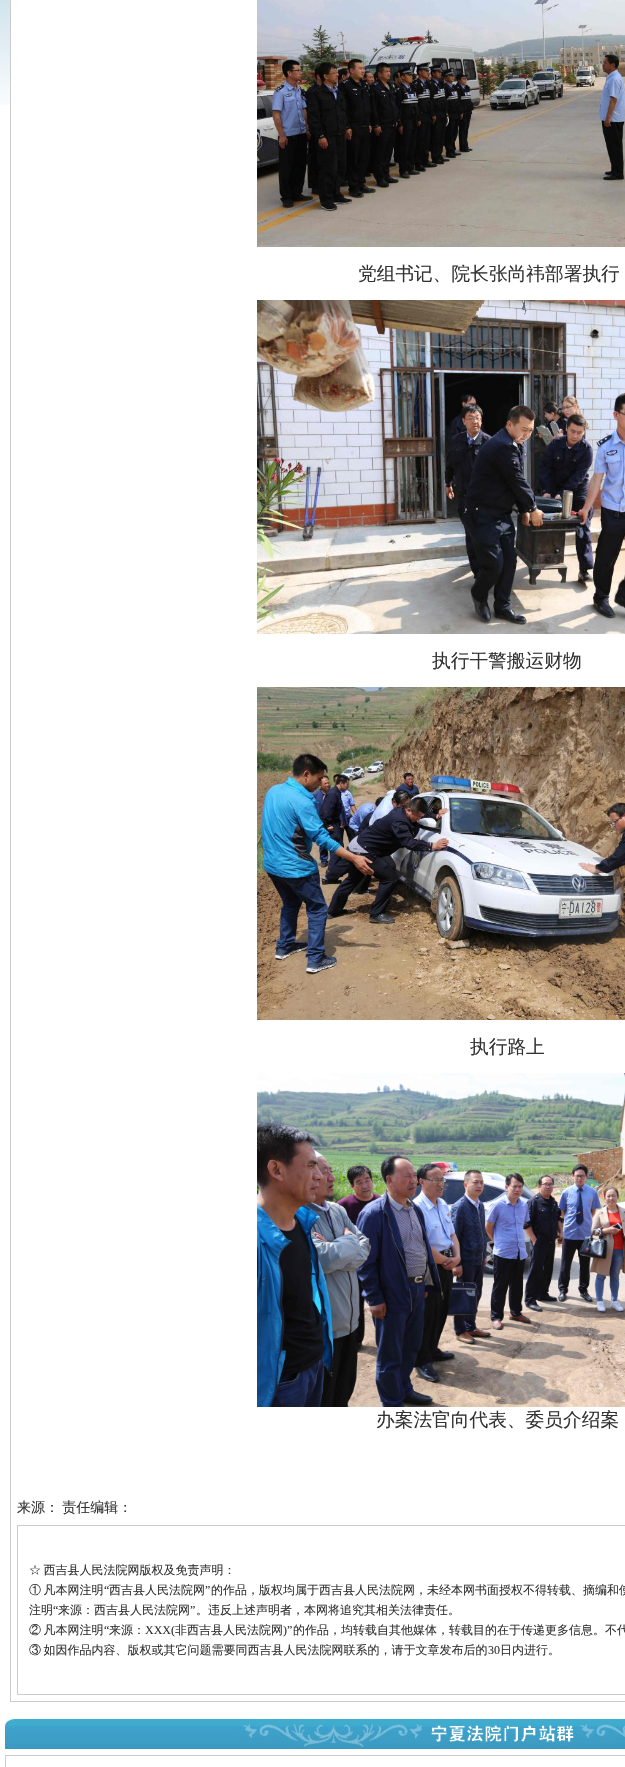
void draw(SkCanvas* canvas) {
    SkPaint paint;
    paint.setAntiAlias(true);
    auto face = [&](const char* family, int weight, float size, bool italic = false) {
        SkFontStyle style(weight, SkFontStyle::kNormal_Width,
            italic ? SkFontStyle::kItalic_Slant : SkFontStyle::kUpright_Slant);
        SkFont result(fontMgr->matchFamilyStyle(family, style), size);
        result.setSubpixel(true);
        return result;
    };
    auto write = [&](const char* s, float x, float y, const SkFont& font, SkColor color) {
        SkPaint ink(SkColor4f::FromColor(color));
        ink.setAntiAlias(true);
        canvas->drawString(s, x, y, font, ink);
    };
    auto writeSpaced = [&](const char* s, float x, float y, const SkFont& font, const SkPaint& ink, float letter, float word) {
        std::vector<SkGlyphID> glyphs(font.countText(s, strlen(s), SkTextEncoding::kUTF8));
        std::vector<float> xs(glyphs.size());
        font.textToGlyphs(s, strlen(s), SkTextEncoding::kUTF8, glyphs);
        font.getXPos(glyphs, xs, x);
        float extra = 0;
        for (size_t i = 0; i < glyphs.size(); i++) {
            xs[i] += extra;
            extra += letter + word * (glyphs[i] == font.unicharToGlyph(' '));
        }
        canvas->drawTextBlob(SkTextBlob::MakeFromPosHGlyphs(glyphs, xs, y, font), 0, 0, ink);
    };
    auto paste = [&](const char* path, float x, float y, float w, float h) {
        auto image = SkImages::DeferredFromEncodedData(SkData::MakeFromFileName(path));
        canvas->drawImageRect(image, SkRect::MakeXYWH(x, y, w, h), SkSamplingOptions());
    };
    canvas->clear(SK_ColorWHITE);
    paste("pic1.png", 0, 0, 10, 105);
    paint.setStyle(SkPaint::kStroke_Style);
    paint.setStrokeWidth(1);
    paint.setColor(SkColorSetRGB(204, 204, 204));
    canvas->drawRect(SkRect::MakeXYWH(10.5f, -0.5f, 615, 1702), paint);
    paste("pic2.png", 257, 0, 368, 247);
    auto kFont1 = face("WenQuanYi Zen Hei", 500, 18.7f);
    write("党组书记、院长张尚祎部署执行", 358, 280, kFont1, SkColorSetRGB(51, 51, 51));
    paste("pic3.png", 257, 300, 368, 334);
    write("执行干警搬运财物", 432, 667, kFont1, SkColorSetRGB(51, 51, 51));
    paste("pic4.png", 257, 687, 368, 333);
    write("执行路上", 470, 1053, kFont1, SkColorSetRGB(51, 51, 51));
    paste("pic5.png", 257, 1073, 368, 334);
    write("办案法官向代表、委员介绍案", 376, 1426, kFont1, SkColorSetRGB(51, 51, 51));
    auto kFont2 = face("WenQuanYi Zen Hei", 500, 14);
    paint.setStyle(SkPaint::kFill_Style);
    paint.setColor(SkColorSetRGB(51, 51, 51));
    writeSpaced("来源： 责任编辑：", 17, 1512, kFont2, paint, 0, -1);
    paint.setStyle(SkPaint::kStroke_Style);
    paint.setColor(SkColorSetRGB(204, 204, 204));
    canvas->drawRect(SkRect::MakeXYWH(17.5f, 1525.5f, 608, 169), paint);
    auto kFont3 = face("WenQuanYi Zen Hei", 500, 12);
    paint.setStyle(SkPaint::kFill_Style);
    paint.setColor(SkColorSetRGB(51, 51, 51));
    writeSpaced("☆ 西吉县人民法院网版权及免责声明：", 29, 1574, kFont3, paint, 0, -1);
    writeSpaced("① 凡本网注明", 29, 1594, kFont3, paint, 0, -1);
    auto kFont4 = face("Liberation Serif", 400, 12);
    write("“", 104, 1594, kFont4, SkColorSetRGB(51, 51, 51));
    write("西吉县人民法院网", 109, 1594, kFont3, SkColorSetRGB(51, 51, 51));
    write("”", 205, 1594, kFont4, SkColorSetRGB(51, 51, 51));
    write("的作品，版权均属于西吉县人民法院网，未经本网书面授权不得转载、摘编和使", 211, 1594, kFont3, SkColorSetRGB(51, 51, 51));
    write("注明", 29, 1614, kFont3, SkColorSetRGB(51, 51, 51));
    write("“", 53, 1614, kFont4, SkColorSetRGB(51, 51, 51));
    write("来源：西吉县人民法院网", 58, 1614, kFont3, SkColorSetRGB(51, 51, 51));
    write("”", 190, 1614, kFont4, SkColorSetRGB(51, 51, 51));
    write("。违反上述声明者，本网将追究其相关法律责任。", 196, 1614, kFont3, SkColorSetRGB(51, 51, 51));
    writeSpaced("② 凡本网注明", 29, 1634, kFont3, paint, 0, -1);
    write("“", 104, 1634, kFont4, SkColorSetRGB(51, 51, 51));
    write("来源：", 109, 1634, kFont3, SkColorSetRGB(51, 51, 51));
    write("XXX(", 145, 1634, kFont4, SkColorSetRGB(51, 51, 51));
    write("非西吉县人民法院网", 175, 1634, kFont3, SkColorSetRGB(51, 51, 51));
    write(")”", 283, 1634, kFont4, SkColorSetRGB(51, 51, 51));
    write("的作品，均转载自其他媒体，转载目的在于传递更多信息。不代", 293, 1634, kFont3, SkColorSetRGB(51, 51, 51));
    writeSpaced("③ 如因作品内容、版权或其它问题需要同西吉县人民法院网联系的，请于文章发布后的", 29, 1654, kFont3, paint, 0, -1);
    write("30", 488, 1654, kFont4, SkColorSetRGB(51, 51, 51));
    write("日内进行。", 500, 1654, kFont3, SkColorSetRGB(51, 51, 51));
    paste("pic6.png", 5, 1717, 620, 32);
    paint.setStyle(SkPaint::kStroke_Style);
    paint.setColor(SkColorSetRGB(204, 204, 204));
    canvas->drawRect(SkRect::MakeXYWH(5.5f, 1755.5f, 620, 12), paint);
}
